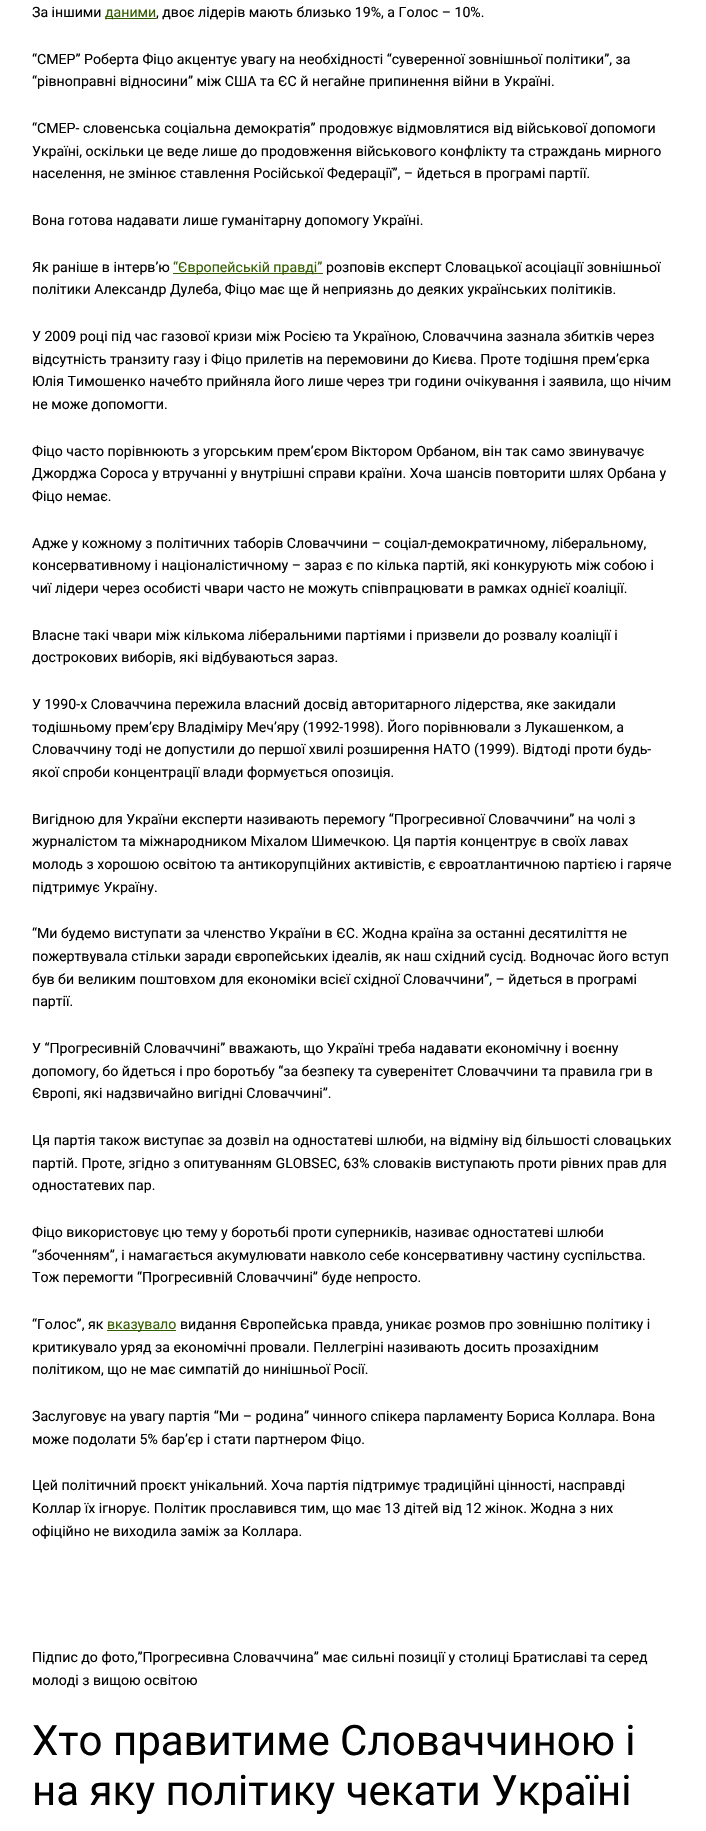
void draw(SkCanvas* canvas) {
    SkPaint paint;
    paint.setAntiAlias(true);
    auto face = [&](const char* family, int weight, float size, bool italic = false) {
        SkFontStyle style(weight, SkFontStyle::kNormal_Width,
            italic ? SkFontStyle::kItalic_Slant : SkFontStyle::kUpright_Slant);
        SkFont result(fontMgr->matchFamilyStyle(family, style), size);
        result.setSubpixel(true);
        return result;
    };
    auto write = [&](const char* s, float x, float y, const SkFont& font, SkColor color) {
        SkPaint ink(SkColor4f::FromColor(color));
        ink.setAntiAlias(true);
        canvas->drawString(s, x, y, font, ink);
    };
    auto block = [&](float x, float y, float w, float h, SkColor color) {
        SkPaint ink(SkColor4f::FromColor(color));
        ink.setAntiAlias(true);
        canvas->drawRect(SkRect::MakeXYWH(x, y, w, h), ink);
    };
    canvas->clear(SK_ColorWHITE);
    auto kFont1 = face("Roboto", 400, 14.15f);
    write("За іншими", 32, 17, kFont1, SK_ColorBLACK);
    block(105, 18, 51, 1, SkColorSetRGB(52, 92, 0));
    write("даними", 105, 17, kFont1, SkColorSetRGB(52, 92, 0));
    write(", двоє лідерів мають близько 19%, а Голос – 10%.", 156, 17, kFont1, SK_ColorBLACK);
    write("“СМЕР” Роберта Фіцо акцентує увагу на необхідності “суверенної зовнішньої політики”, за", 32, 64, kFont1, SK_ColorBLACK);
    write("“рівноправні відносини” між США та ЄС й негайне припинення війни в Україні.", 32, 86, kFont1, SK_ColorBLACK);
    write("“СМЕР- словенська соціальна демократія” продовжує відмовлятися від військової допомоги", 32, 133, kFont1, SK_ColorBLACK);
    write("Україні, оскільки це веде лише до продовження військового конфлікту та страждань мирного", 32, 156, kFont1, SK_ColorBLACK);
    write("населення, не змінює ставлення Російської Федерації”, – йдеться в програмі партії.", 32, 178, kFont1, SK_ColorBLACK);
    write("Вона готова надавати лише гуманітарну допомогу Україні.", 32, 225, kFont1, SK_ColorBLACK);
    write("Як раніше в інтерв’ю", 32, 272, kFont1, SK_ColorBLACK);
    block(173, 273, 150, 1, SkColorSetRGB(52, 92, 0));
    write("“Європейській правді”", 173, 272, kFont1, SkColorSetRGB(52, 92, 0));
    write("розповів експерт Словацької асоціації зовнішньої", 326, 272, kFont1, SK_ColorBLACK);
    write("політики Александр Дулеба, Фіцо має ще й неприязнь до деяких українських політиків.", 32, 294, kFont1, SK_ColorBLACK);
    write("У 2009 році під час газової кризи між Росією та Україною, Словаччина зазнала збитків через", 32, 341, kFont1, SK_ColorBLACK);
    write("відсутність транзиту газу і Фіцо прилетів на перемовини до Києва. Проте тодішня прем’єрка", 32, 364, kFont1, SK_ColorBLACK);
    write("Юлія Тимошенко начебто прийняла його лише через три години очікування і заявила, що нічим", 32, 386, kFont1, SK_ColorBLACK);
    write("не може допомогти.", 32, 409, kFont1, SK_ColorBLACK);
    write("Фіцо часто порівнюють з угорським прем’єром Віктором Орбаном, він так само звинувачує", 32, 456, kFont1, SK_ColorBLACK);
    write("Джорджа Сороса у втручанні у внутрішні справи країни. Хоча шансів повторити шлях Орбана у", 32, 478, kFont1, SK_ColorBLACK);
    write("Фіцо немає.", 32, 501, kFont1, SK_ColorBLACK);
    write("Адже у кожному з політичних таборів Словаччини – соціал-демократичному, ліберальному,", 32, 548, kFont1, SK_ColorBLACK);
    write("консервативному і націоналістичному – зараз є по кілька партій, які конкурують між собою і", 32, 570, kFont1, SK_ColorBLACK);
    write("чиї лідери через особисті чвари часто не можуть співпрацювати в рамках однієї коаліції.", 32, 593, kFont1, SK_ColorBLACK);
    write("Власне такі чвари між кількома ліберальними партіями і призвели до розвалу коаліції і", 32, 640, kFont1, SK_ColorBLACK);
    write("дострокових виборів, які відбуваються зараз.", 32, 662, kFont1, SK_ColorBLACK);
    write("У 1990-х Словаччина пережила власний досвід авторитарного лідерства, яке закидали", 32, 709, kFont1, SK_ColorBLACK);
    write("тодішньому прем’єру Владіміру Меч’яру (1992-1998). Його порівнювали з Лукашенком, а", 32, 732, kFont1, SK_ColorBLACK);
    write("Словаччину тоді не допустили до першої хвилі розширення НАТО (1999). Відтоді проти будь-", 32, 754, kFont1, SK_ColorBLACK);
    write("якої спроби концентрації влади формується опозиція.", 32, 777, kFont1, SK_ColorBLACK);
    write("Вигідною для України експерти називають перемогу “Прогресивної Словаччини” на чолі з", 32, 824, kFont1, SK_ColorBLACK);
    write("журналістом та міжнародником Міхалом Шимечкою. Ця партія концентрує в своїх лавах", 32, 846, kFont1, SK_ColorBLACK);
    write("молодь з хорошою освітою та антикорупційних активістів, є євроатлантичною партією і гаряче", 32, 869, kFont1, SK_ColorBLACK);
    write("підтримує Україну.", 32, 892, kFont1, SK_ColorBLACK);
    write("“Ми будемо виступати за членство України в ЄС. Жодна країна за останні десятиліття не", 32, 938, kFont1, SK_ColorBLACK);
    write("пожертвувала стільки заради європейських ідеалів, як наш східний сусід. Водночас його вступ", 32, 961, kFont1, SK_ColorBLACK);
    write("був би великим поштовхом для економіки всієї східної Словаччини”, – йдеться в програмі", 32, 984, kFont1, SK_ColorBLACK);
    write("партії.", 32, 1006, kFont1, SK_ColorBLACK);
    write("У “Прогресивній Словаччині” вважають, що Україні треба надавати економічну і воєнну", 32, 1053, kFont1, SK_ColorBLACK);
    write("допомогу, бо йдеться і про боротьбу “за безпеку та суверенітет Словаччини та правила гри в", 32, 1076, kFont1, SK_ColorBLACK);
    write("Європі, які надзвичайно вигідні Словаччині”.", 32, 1098, kFont1, SK_ColorBLACK);
    write("Ця партія також виступає за дозвіл на одностатеві шлюби, на відміну від більшості словацьких", 32, 1145, kFont1, SK_ColorBLACK);
    write("партій. Проте, згідно з опитуванням GLOBSEC, 63% словаків виступають проти рівних прав для", 32, 1168, kFont1, SK_ColorBLACK);
    write("одностатевих пар.", 32, 1190, kFont1, SK_ColorBLACK);
    write("Фіцо використовує цю тему у боротьбі проти суперників, називає одностатеві шлюби", 32, 1237, kFont1, SK_ColorBLACK);
    write("“збоченням”, і намагається акумулювати навколо себе консервативну частину суспільства.", 32, 1260, kFont1, SK_ColorBLACK);
    write("Тож перемогти “Прогресивній Словаччині” буде непросто.", 32, 1282, kFont1, SK_ColorBLACK);
    write("“Голос”, як", 32, 1329, kFont1, SK_ColorBLACK);
    block(107, 1330, 69, 1, SkColorSetRGB(52, 92, 0));
    write("вказувало", 107, 1329, kFont1, SkColorSetRGB(52, 92, 0));
    write("видання Європейська правда, уникає розмов про зовнішню політику і", 180, 1329, kFont1, SK_ColorBLACK);
    write("критикувало уряд за економічні провали. Пеллегріні називають досить прозахідним", 32, 1352, kFont1, SK_ColorBLACK);
    write("політиком, що не має симпатій до нинішньої Росії.", 32, 1374, kFont1, SK_ColorBLACK);
    write("Заслуговує на увагу партія “Ми – родина” чинного спікера парламенту Бориса Коллара. Вона", 32, 1421, kFont1, SK_ColorBLACK);
    write("може подолати 5% бар’єр і стати партнером Фіцо.", 32, 1444, kFont1, SK_ColorBLACK);
    write("Цей політичний проєкт унікальний. Хоча партія підтримує традиційні цінності, насправді", 32, 1490, kFont1, SK_ColorBLACK);
    write("Коллар їх ігнорує. Політик прославився тим, що має 13 дітей від 12 жінок. Жодна з них", 32, 1513, kFont1, SK_ColorBLACK);
    write("офіційно не виходила заміж за Коллара.", 32, 1536, kFont1, SK_ColorBLACK);
    write("Підпис до фото,”Прогресивна Словаччина” має сильні позиції у столиці Братиславі та серед", 32, 1662, kFont1, SK_ColorBLACK);
    write("молоді з вищою освітою", 32, 1685, kFont1, SK_ColorBLACK);
    auto kFont2 = face("Roboto", 400, 42);
    write("Хто правитиме Словаччиною і", 32, 1755, kFont2, SK_ColorBLACK);
    write("на яку політику чекати Україні", 32, 1805, kFont2, SK_ColorBLACK);
}
